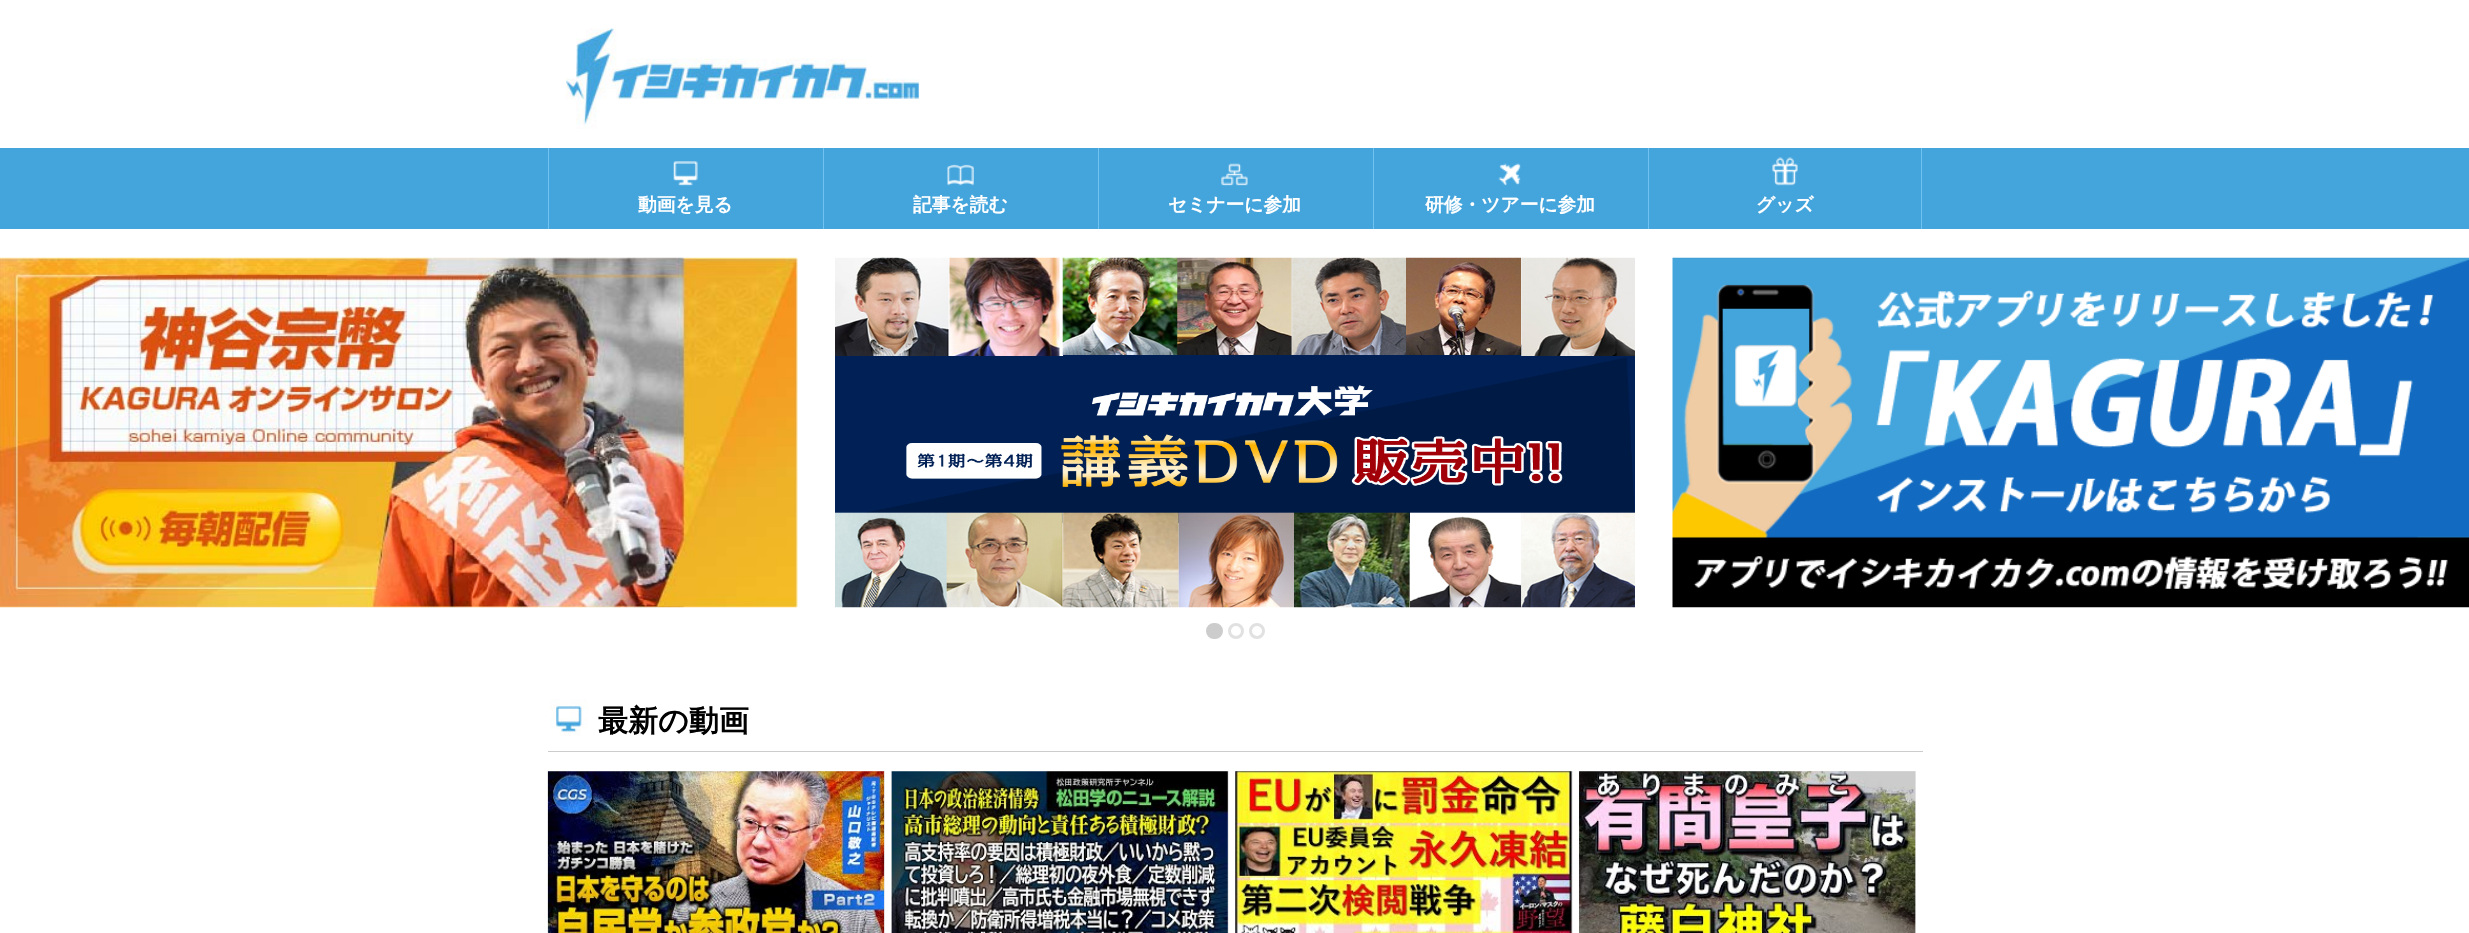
void draw(SkCanvas* canvas) {
    SkPaint paint;
    paint.setAntiAlias(true);
    auto face = [&](const char* family, int weight, float size, bool italic = false) {
        SkFontStyle style(weight, SkFontStyle::kNormal_Width,
            italic ? SkFontStyle::kItalic_Slant : SkFontStyle::kUpright_Slant);
        SkFont result(fontMgr->matchFamilyStyle(family, style), size);
        result.setSubpixel(true);
        return result;
    };
    auto write = [&](const char* s, float x, float y, const SkFont& font, SkColor color) {
        SkPaint ink(SkColor4f::FromColor(color));
        ink.setAntiAlias(true);
        canvas->drawString(s, x, y, font, ink);
    };
    auto block = [&](float x, float y, float w, float h, SkColor color) {
        SkPaint ink(SkColor4f::FromColor(color));
        ink.setAntiAlias(true);
        canvas->drawRect(SkRect::MakeXYWH(x, y, w, h), ink);
    };
    auto paste = [&](const char* path, float x, float y, float w, float h) {
        auto image = SkImages::DeferredFromEncodedData(SkData::MakeFromFileName(path));
        canvas->drawImageRect(image, SkRect::MakeXYWH(x, y, w, h), SkSamplingOptions());
    };
    canvas->clear(SK_ColorWHITE);
    paste("pic1.png", 566, 28, 353, 101);
    block(0, 148, 2469, 81, SkColorSetRGB(68, 165, 221));
    block(548, 148, 1, 81, SkColorSetRGB(112, 194, 241));
    paste("pic2.png", 673, 161, 25, 25);
    auto kFont1 = face("WenQuanYi Zen Hei", 700, 18.75f);
    write("動画を見る", 638, 211, kFont1, SK_ColorWHITE);
    block(823, 148, 1, 81, SkColorSetRGB(112, 194, 241));
    paste("pic3.png", 947, 164, 27, 22);
    write("記事を読む", 913, 211, kFont1, SK_ColorWHITE);
    block(1098, 148, 1, 81, SkColorSetRGB(112, 194, 241));
    paste("pic4.png", 1221, 163, 27, 23);
    write("セミナーに参加", 1168, 211, kFont1, SK_ColorWHITE);
    block(1373, 148, 1, 81, SkColorSetRGB(112, 194, 241));
    paste("pic5.png", 1498, 163, 23, 23);
    write("研修・ツアーに参加", 1425, 211, kFont1, SK_ColorWHITE);
    block(1648, 148, 1, 81, SkColorSetRGB(112, 194, 241));
    paste("pic6.png", 1772, 157, 26, 29);
    write("グッズ", 1756, 211, kFont1, SK_ColorWHITE);
    block(1921, 148, 1, 81, SkColorSetRGB(112, 194, 241));
    paste("pic7.png", 0, 257, 798, 351);
    paste("pic8.png", 835, 257, 800, 351);
    paste("pic9.png", 1672, 257, 797, 351);
    paint.setColor(SkColorSetRGB(204, 204, 204));
    canvas->drawRoundRect(SkRect::MakeXYWH(1207.5f, 624.5f, 14, 13), 6.5f, 6.5f, paint);
    paint.setStyle(SkPaint::kStroke_Style);
    paint.setStrokeWidth(3);
    canvas->drawRoundRect(SkRect::MakeXYWH(1207.5f, 624.5f, 14, 13), 6.5f, 6.5f, paint);
    paint.setColor(SkColorSetRGB(225, 225, 225));
    canvas->drawCircle(1236, 631, 6.5f, paint);
    canvas->drawCircle(1257, 631, 6.5f, paint);
    block(548, 751, 1375, 1, SkColorSetRGB(204, 204, 204));
    paste("pic10.png", 550, 699, 38, 37);
    auto kFont2 = face("WenQuanYi Zen Hei", 700, 30);
    write("最新の動画", 598, 731, kFont2, SK_ColorBLACK);
    block(548, 771, 337, 162, SkColorSetRGB(236, 236, 236));
    paste("pic11.png", 547, 771, 338, 162);
    block(891, 771, 338, 162, SkColorSetRGB(236, 236, 236));
    paste("pic12.png", 891, 771, 337, 162);
    block(1235, 771, 338, 162, SkColorSetRGB(236, 236, 236));
    paste("pic13.png", 1235, 771, 337, 162);
    block(1579, 771, 337, 162, SkColorSetRGB(236, 236, 236));
    paste("pic14.png", 1579, 771, 337, 162);
}
